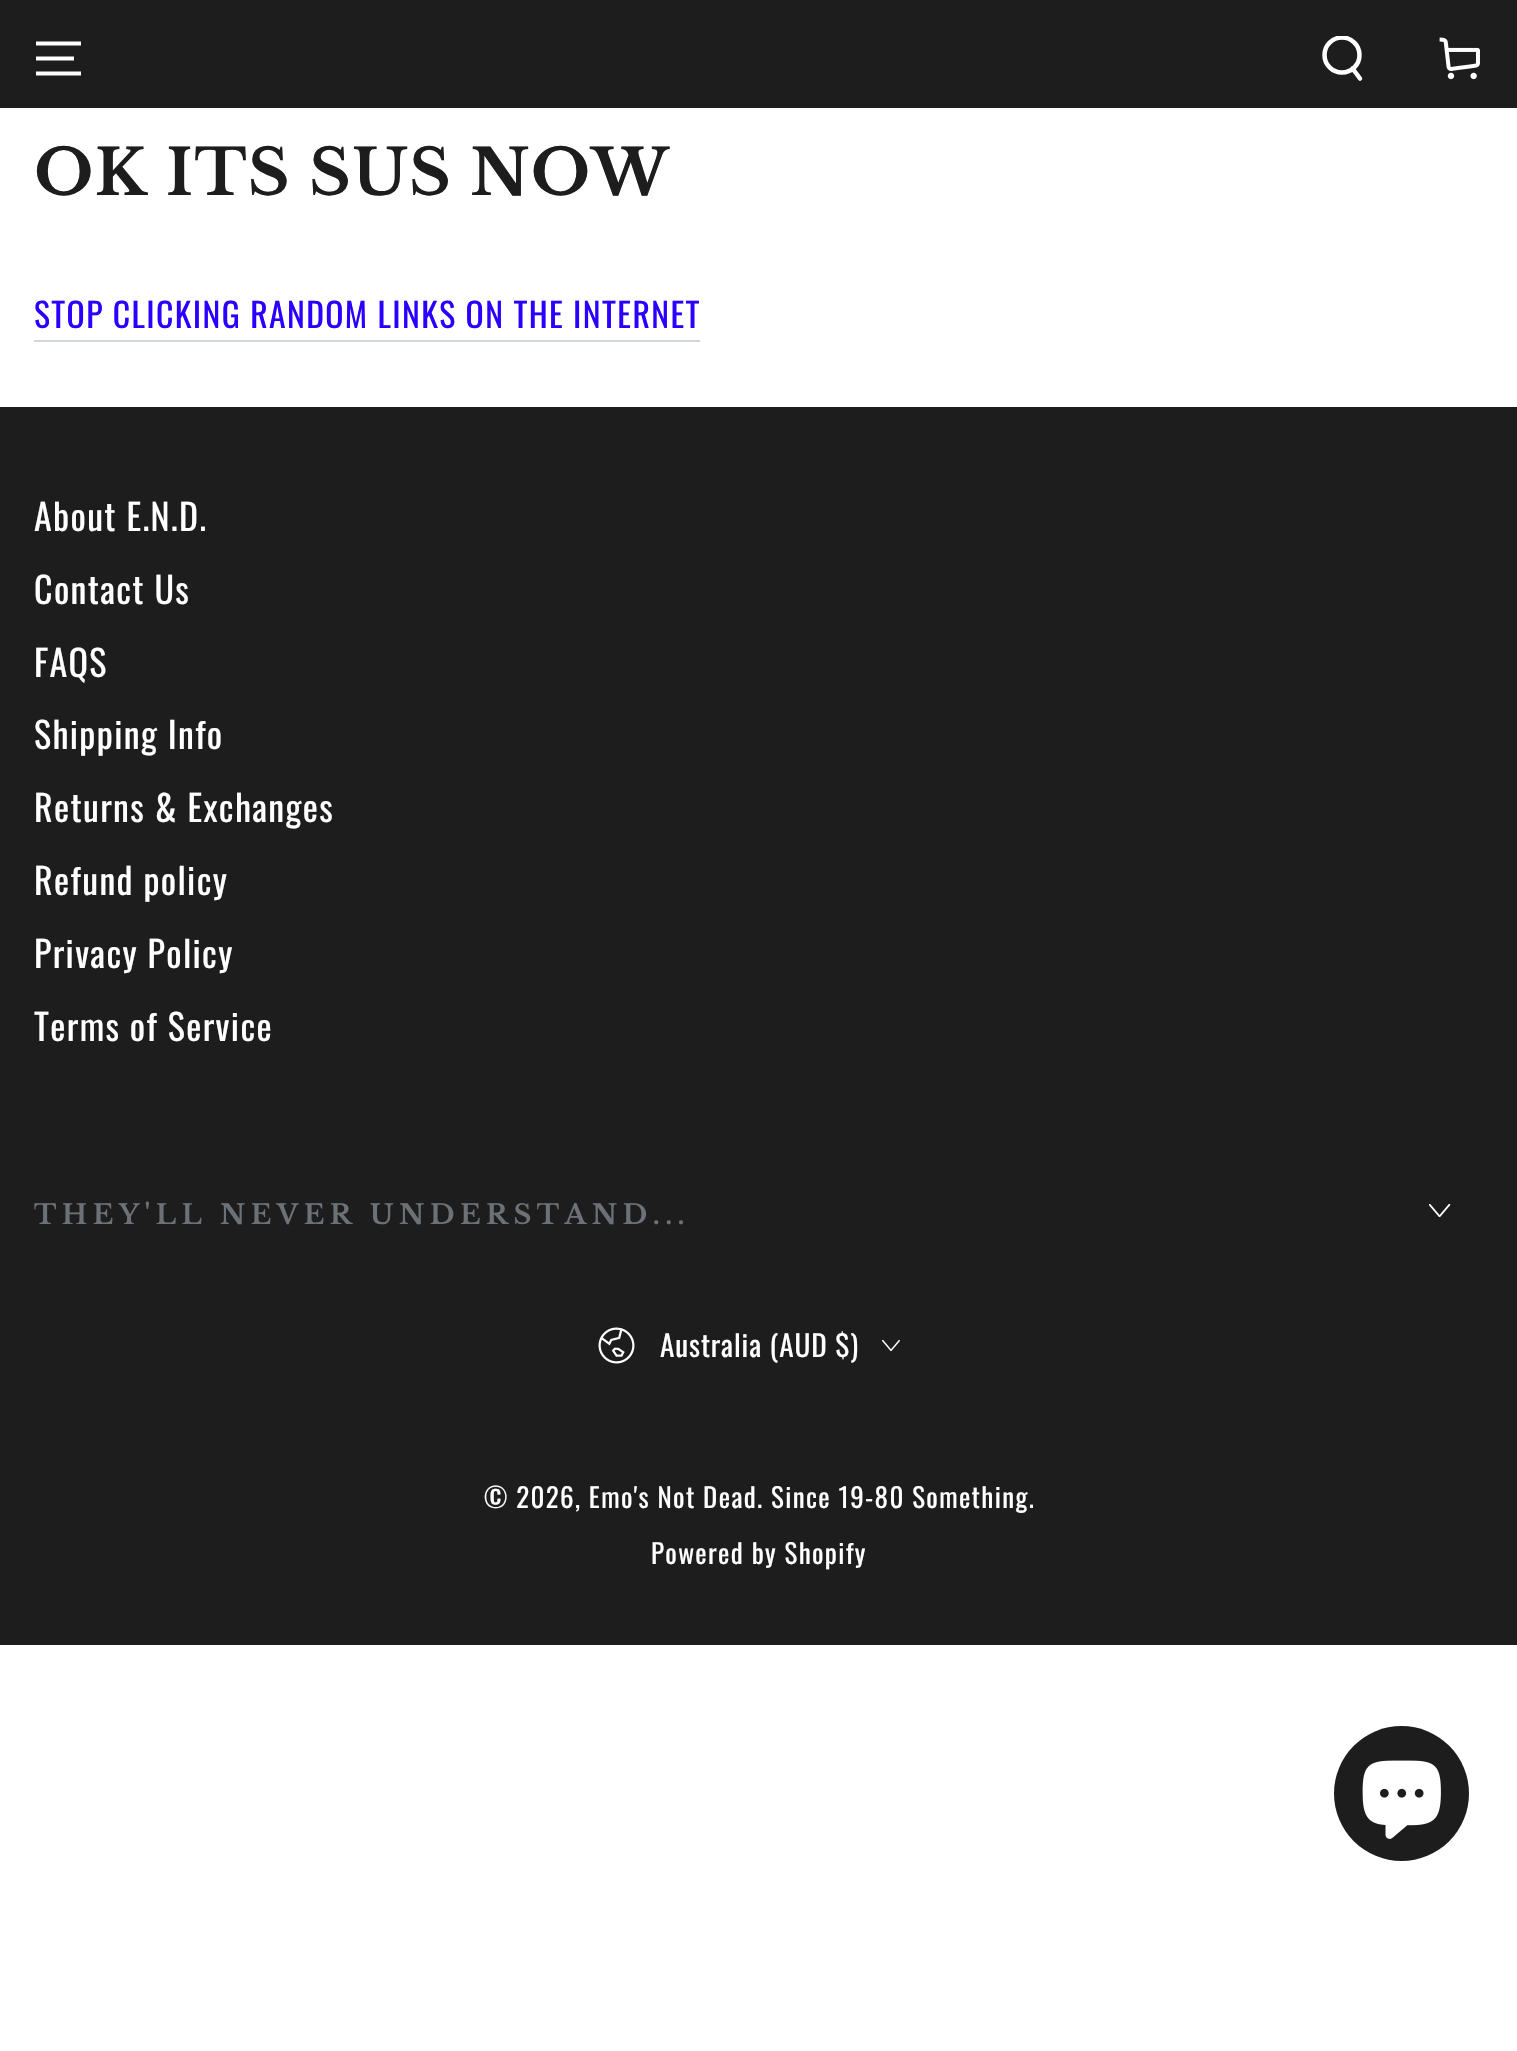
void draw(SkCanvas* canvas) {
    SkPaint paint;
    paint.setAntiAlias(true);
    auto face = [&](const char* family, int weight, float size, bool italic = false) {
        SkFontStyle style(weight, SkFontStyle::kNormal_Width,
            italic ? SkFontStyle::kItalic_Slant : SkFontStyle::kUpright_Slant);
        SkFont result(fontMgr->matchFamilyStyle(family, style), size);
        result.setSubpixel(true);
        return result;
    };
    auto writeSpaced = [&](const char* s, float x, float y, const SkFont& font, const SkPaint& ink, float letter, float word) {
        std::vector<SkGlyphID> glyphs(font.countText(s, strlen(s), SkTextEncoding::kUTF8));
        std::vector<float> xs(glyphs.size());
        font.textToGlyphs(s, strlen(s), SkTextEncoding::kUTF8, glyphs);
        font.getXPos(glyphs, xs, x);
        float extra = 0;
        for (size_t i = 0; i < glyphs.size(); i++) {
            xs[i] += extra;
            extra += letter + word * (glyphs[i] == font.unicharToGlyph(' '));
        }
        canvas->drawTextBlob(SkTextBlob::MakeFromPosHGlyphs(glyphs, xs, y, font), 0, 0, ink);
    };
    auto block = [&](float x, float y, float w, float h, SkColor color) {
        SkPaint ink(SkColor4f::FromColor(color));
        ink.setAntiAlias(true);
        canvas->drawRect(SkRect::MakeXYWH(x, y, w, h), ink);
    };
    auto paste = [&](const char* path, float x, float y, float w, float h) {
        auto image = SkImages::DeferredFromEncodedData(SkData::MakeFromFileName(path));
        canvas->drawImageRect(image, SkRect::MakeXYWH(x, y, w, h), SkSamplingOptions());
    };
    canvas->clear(SK_ColorWHITE);
    block(0, 0, 1517, 108, SkColorSetRGB(29, 29, 29));
    paint.setStyle(SkPaint::kStroke_Style);
    paint.setStrokeWidth(4.2f);
    paint.setColor(SK_ColorWHITE);
    canvas->drawPath(SkPathBuilder().moveTo(36, 73.5f).lineTo(81, 73.5f).moveTo(36, 58.5f).lineTo(74, 58.5f).moveTo(36, 43.5f).lineTo(81, 43.5f).detach(), paint);
    canvas->save();
    canvas->clipRect(SkRect::MakeXYWH(1321, 36, 45, 45));
    paint.setStrokeWidth(4.5f);
    canvas->drawCircle(1342, 55, 17.5f, paint);
    canvas->restore();
    paint.setStrokeCap(SkPaint::kRound_Cap);
    canvas->drawPath(SkPathBuilder().moveTo(1352.5f, 68.5f).lineTo(1360, 78.5f).detach(), paint);
    paste("pic1.png", 1439, 37, 41, 43);
    auto kFont1 = face("Libre Baskerville", 700, 63);
    paint.setStyle(SkPaint::kFill_Style);
    paint.setColor(SkColorSetRGB(29, 29, 29));
    writeSpaced("OK ITS SUS NOW", 34, 195, kFont1, paint, 1.35f, 0);
    auto kFont2 = face("Oswald", 400, 33.75f);
    paint.setColor(SkColorSetRGB(43, 0, 255));
    writeSpaced("STOP CLICKING RANDOM LINKS ON THE INTERNET", 34, 328, kFont2, paint, 1.35f, 0);
    block(34, 340, 666, 2, SkColorSetRGB(210, 213, 217));
    block(0, 407, 1517, 1238, SkColorSetRGB(29, 29, 29));
    auto kFont3 = face("Oswald", 400, 36);
    paint.setColor(SK_ColorWHITE);
    writeSpaced("About E.N.D.", 34, 531, kFont3, paint, 1.35f, 0);
    writeSpaced("Contact Us", 34, 604, kFont3, paint, 1.35f, 0);
    writeSpaced("FAQS", 34, 677, kFont3, paint, 1.35f, 0);
    writeSpaced("Shipping Info", 34, 749, kFont3, paint, 1.35f, 0);
    writeSpaced("Returns & Exchanges", 34, 822, kFont3, paint, 1.35f, 0);
    writeSpaced("Refund policy", 34, 895, kFont3, paint, 1.35f, 0);
    writeSpaced("Privacy Policy", 34, 968, kFont3, paint, 1.35f, 0);
    writeSpaced("Terms of Service", 34, 1041, kFont3, paint, 1.35f, 0);
    auto kFont4 = face("Libre Baskerville", 700, 27);
    paint.setColor(SkColorSetRGB(107, 113, 119));
    writeSpaced("THEY'LL NEVER UNDERSTAND...", 34, 1224, kFont4, paint, 5.4f, 0);
    paste("pic2.png", 1429, 1204, 22, 13);
    paste("pic3.png", 598, 1327, 37, 37);
    auto kFont5 = face("Oswald", 400, 29.25f);
    paint.setColor(SK_ColorWHITE);
    writeSpaced("Australia (AUD $)", 660, 1357, kFont5, paint, 0.9f, 0);
    paste("pic4.png", 882, 1339, 18, 13);
    auto kFont6 = face("Oswald", 400, 27);
    writeSpaced("© 2026, Emo's Not Dead. Since 19-80 Something.", 484, 1508, kFont6, paint, 1.35f, 0);
    writeSpaced("Powered by Shopify", 651, 1564, kFont6, paint, 1.35f, 0);
    paint.setColor(SkColorSetRGB(29, 29, 29));
    canvas->drawCircle(1401.5f, 1793.5f, 67.5f, paint);
    paste("pic5.png", 1362, 1760, 79, 79);
}
